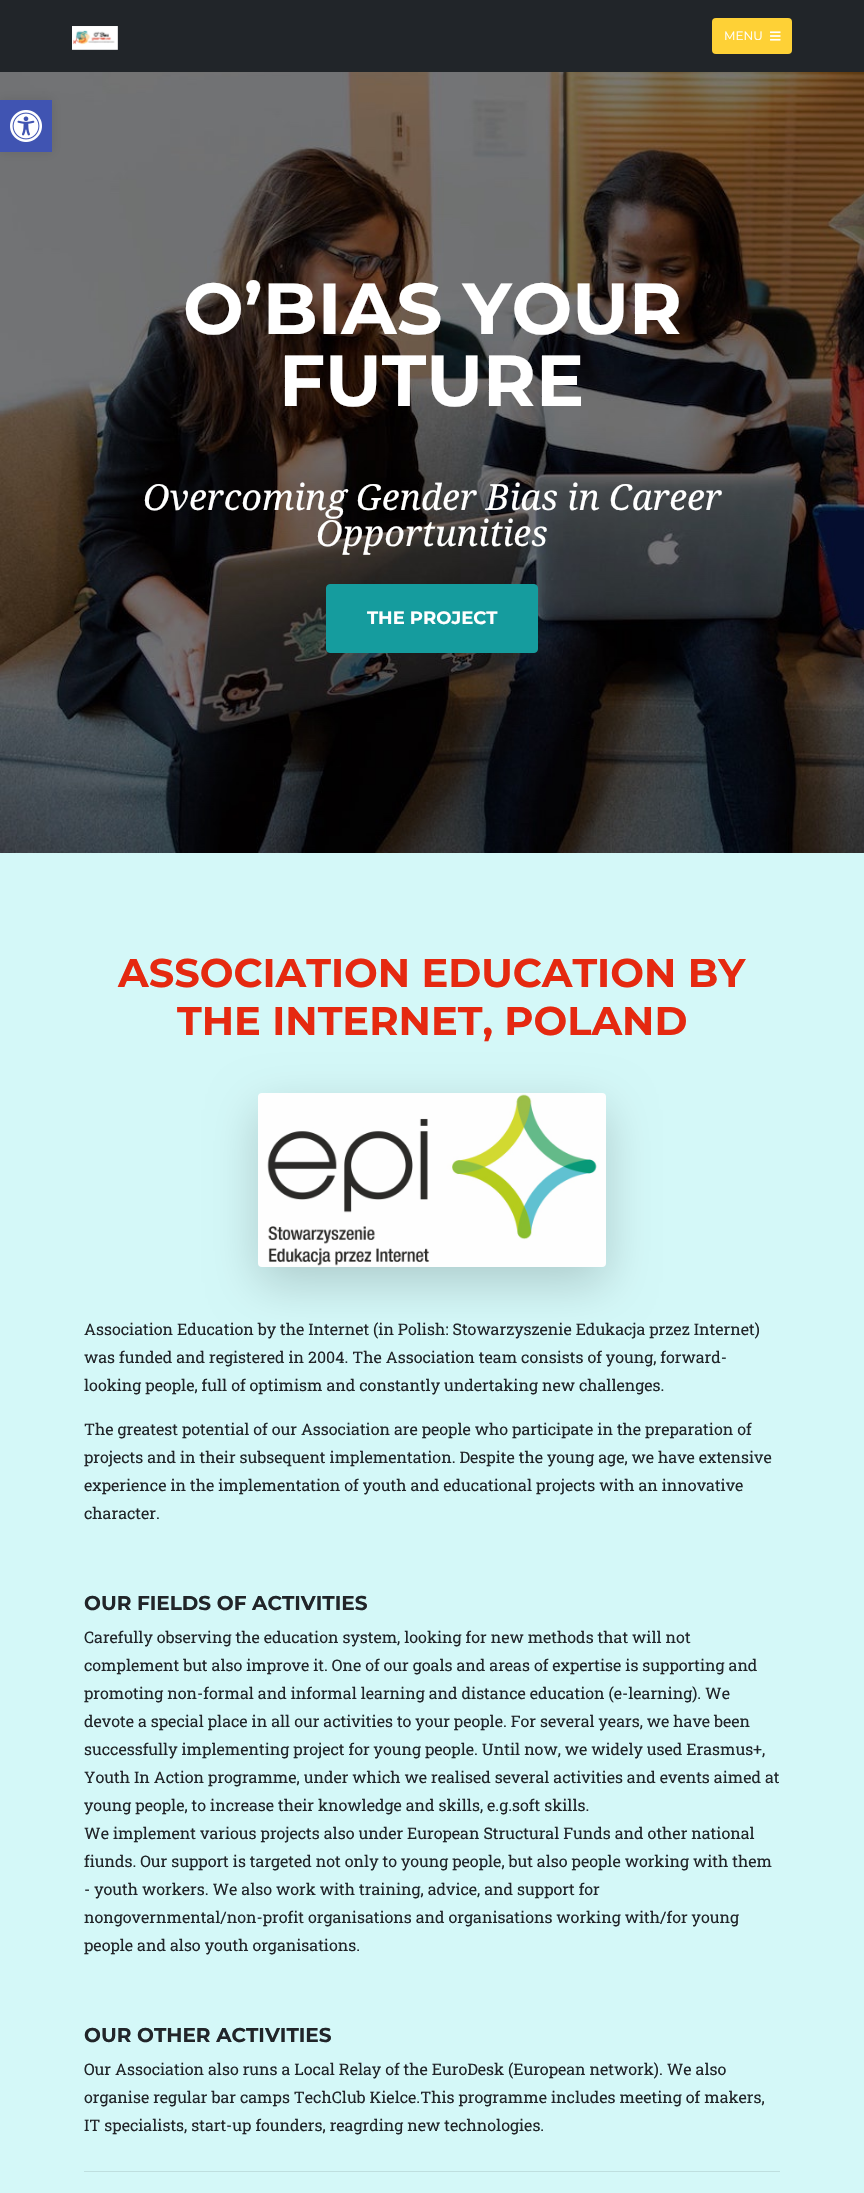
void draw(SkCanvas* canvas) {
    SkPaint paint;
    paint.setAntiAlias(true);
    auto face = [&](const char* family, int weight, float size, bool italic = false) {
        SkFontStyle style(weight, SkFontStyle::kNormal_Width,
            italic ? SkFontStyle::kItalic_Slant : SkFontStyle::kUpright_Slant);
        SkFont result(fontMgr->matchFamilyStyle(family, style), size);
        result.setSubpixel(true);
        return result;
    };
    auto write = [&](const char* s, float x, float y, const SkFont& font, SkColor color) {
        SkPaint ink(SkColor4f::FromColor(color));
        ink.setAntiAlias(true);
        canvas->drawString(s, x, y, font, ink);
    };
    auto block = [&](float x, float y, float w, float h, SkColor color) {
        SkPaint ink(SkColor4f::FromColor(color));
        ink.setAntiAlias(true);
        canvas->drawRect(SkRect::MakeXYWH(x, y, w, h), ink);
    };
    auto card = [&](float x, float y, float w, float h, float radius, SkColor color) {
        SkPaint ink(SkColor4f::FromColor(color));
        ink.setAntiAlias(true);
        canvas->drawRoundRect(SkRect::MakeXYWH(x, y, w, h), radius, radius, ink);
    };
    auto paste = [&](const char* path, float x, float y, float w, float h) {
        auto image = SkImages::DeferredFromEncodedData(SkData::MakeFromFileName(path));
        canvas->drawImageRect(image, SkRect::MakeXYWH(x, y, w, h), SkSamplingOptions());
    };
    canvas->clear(SK_ColorWHITE);
    block(0, 0, 864, 72, SkColorSetRGB(33, 37, 41));
    paste("pic1.png", 72, 26, 46, 24);
    card(712, 18, 80, 36, 4, SkColorSetRGB(254, 209, 54));
    auto kFont1 = face("Montserrat", 400, 12);
    write("MENU", 724, 40, kFont1, SK_ColorWHITE);
    paste("pic2.png", 770, 31, 11, 10);
    paste("pic4.png", 0, 72, 864, 781);
    paint.setColor(SkColorSetARGB(26, 0, 0, 0));
    paint.setMaskFilter(SkMaskFilter::MakeBlur(kNormal_SkBlurStyle, 5));
    canvas->drawRect(SkRect::MakeXYWH(0, 100, 52, 52), paint);
    paint.setMaskFilter(nullptr);
    block(0, 100, 52, 52, SkColorSetRGB(64, 84, 178));
    paste("pic3.png", 10, 110, 32, 32);
    auto kFont2 = face("Montserrat", 700, 72);
    write("O’BIAS YOUR", 183, 334, kFont2, SK_ColorWHITE);
    write("FUTURE", 279, 406, kFont2, SK_ColorWHITE);
    auto kFont3 = face("Droid Serif", 400, 36, true);
    write("Overcoming Gender Bias in Career", 143, 510, kFont3, SK_ColorWHITE);
    write("Opportunities", 316, 546, kFont3, SK_ColorWHITE);
    paint.setColor(SkColorSetRGB(21, 156, 158));
    canvas->drawRoundRect(SkRect::MakeXYWH(326.5f, 584.5f, 211, 68), 3.5f, 3.5f, paint);
    paint.setStyle(SkPaint::kStroke_Style);
    paint.setStrokeWidth(1);
    canvas->drawRoundRect(SkRect::MakeXYWH(326.5f, 584.5f, 211, 68), 3.5f, 3.5f, paint);
    auto kFont4 = face("Montserrat", 700, 18);
    write("THE PROJECT", 367, 624, kFont4, SK_ColorWHITE);
    block(0, 853, 864, 1340, SkColorSetRGB(212, 248, 248));
    auto kFont5 = face("Montserrat", 700, 40);
    write("ASSOCIATION EDUCATION BY", 118, 987, kFont5, SkColorSetRGB(229, 41, 16));
    write("THE INTERNET, POLAND", 177, 1035, kFont5, SkColorSetRGB(229, 41, 16));
    paint.setStyle(SkPaint::kFill_Style);
    paint.setColor(SkColorSetARGB(46, 0, 0, 0));
    paint.setMaskFilter(SkMaskFilter::MakeBlur(kNormal_SkBlurStyle, 24));
    canvas->drawRoundRect(SkRect::MakeXYWH(258, 1109, 348, 174), 4, 4, paint);
    paint.setMaskFilter(nullptr);
    paste("pic5.png", 258, 1093, 348, 174);
    auto kFont6 = face("Roboto Slab", 400, 16);
    write("Association Education by the Internet (in Polish: Stowarzyszenie Edukacja przez Internet)", 84, 1335, kFont6, SkColorSetRGB(33, 37, 41));
    write("was funded and registered in 2004. The Association team consists of young, forward-", 84, 1363, kFont6, SkColorSetRGB(33, 37, 41));
    write("looking people, full of optimism and constantly undertaking new challenges.", 84, 1391, kFont6, SkColorSetRGB(33, 37, 41));
    write("The greatest potential of our Association are people who participate in the preparation of", 84, 1435, kFont6, SkColorSetRGB(33, 37, 41));
    write("projects and in their subsequent implementation. Despite the young age, we have extensive", 84, 1463, kFont6, SkColorSetRGB(33, 37, 41));
    write("experience in the implementation of youth and educational projects with an innovative", 84, 1491, kFont6, SkColorSetRGB(33, 37, 41));
    write("character.", 84, 1519, kFont6, SkColorSetRGB(33, 37, 41));
    auto kFont7 = face("Montserrat", 700, 20);
    write("OUR FIELDS OF ACTIVITIES", 84, 1610, kFont7, SkColorSetRGB(33, 37, 41));
    write("Carefully observing the education system, looking for new methods that will not", 84, 1643, kFont6, SkColorSetRGB(33, 37, 41));
    write("complement but also improve it. One of our goals and areas of expertise is supporting and", 84, 1671, kFont6, SkColorSetRGB(33, 37, 41));
    write("promoting non-formal and informal learning and distance education (e-learning). We", 84, 1699, kFont6, SkColorSetRGB(33, 37, 41));
    write("devote a special place in all our activities to your people. For several years, we have been", 84, 1727, kFont6, SkColorSetRGB(33, 37, 41));
    write("successfully implementing project for young people. Until now, we widely used Erasmus+,", 84, 1755, kFont6, SkColorSetRGB(33, 37, 41));
    write("Youth In Action programme, under which we realised several activities and events aimed at", 84, 1783, kFont6, SkColorSetRGB(33, 37, 41));
    write("young people, to increase their knowledge and skills, e.g.soft skills.", 84, 1811, kFont6, SkColorSetRGB(33, 37, 41));
    write("We implement various projects also under European Structural Funds and other national", 84, 1839, kFont6, SkColorSetRGB(33, 37, 41));
    write("fiunds. Our support is targeted not only to young people, but also people working with them", 84, 1867, kFont6, SkColorSetRGB(33, 37, 41));
    write("- youth workers. We also work with training, advice, and support for", 84, 1895, kFont6, SkColorSetRGB(33, 37, 41));
    write("nongovernmental/non-profit organisations and organisations working with/for young", 84, 1923, kFont6, SkColorSetRGB(33, 37, 41));
    write("people and also youth organisations.", 84, 1951, kFont6, SkColorSetRGB(33, 37, 41));
    write("OUR OTHER ACTIVITIES", 84, 2042, kFont7, SkColorSetRGB(33, 37, 41));
    write("Our Association also runs a Local Relay of the EuroDesk (European network). We also", 84, 2075, kFont6, SkColorSetRGB(33, 37, 41));
    write("organise regular bar camps TechClub Kielce.This programme includes meeting of makers,", 84, 2103, kFont6, SkColorSetRGB(33, 37, 41));
    write("IT specialists, start-up founders, reagrding new technologies.", 84, 2131, kFont6, SkColorSetRGB(33, 37, 41));
    block(84, 2171, 696, 1, SkColorSetRGB(191, 223, 223));
}
